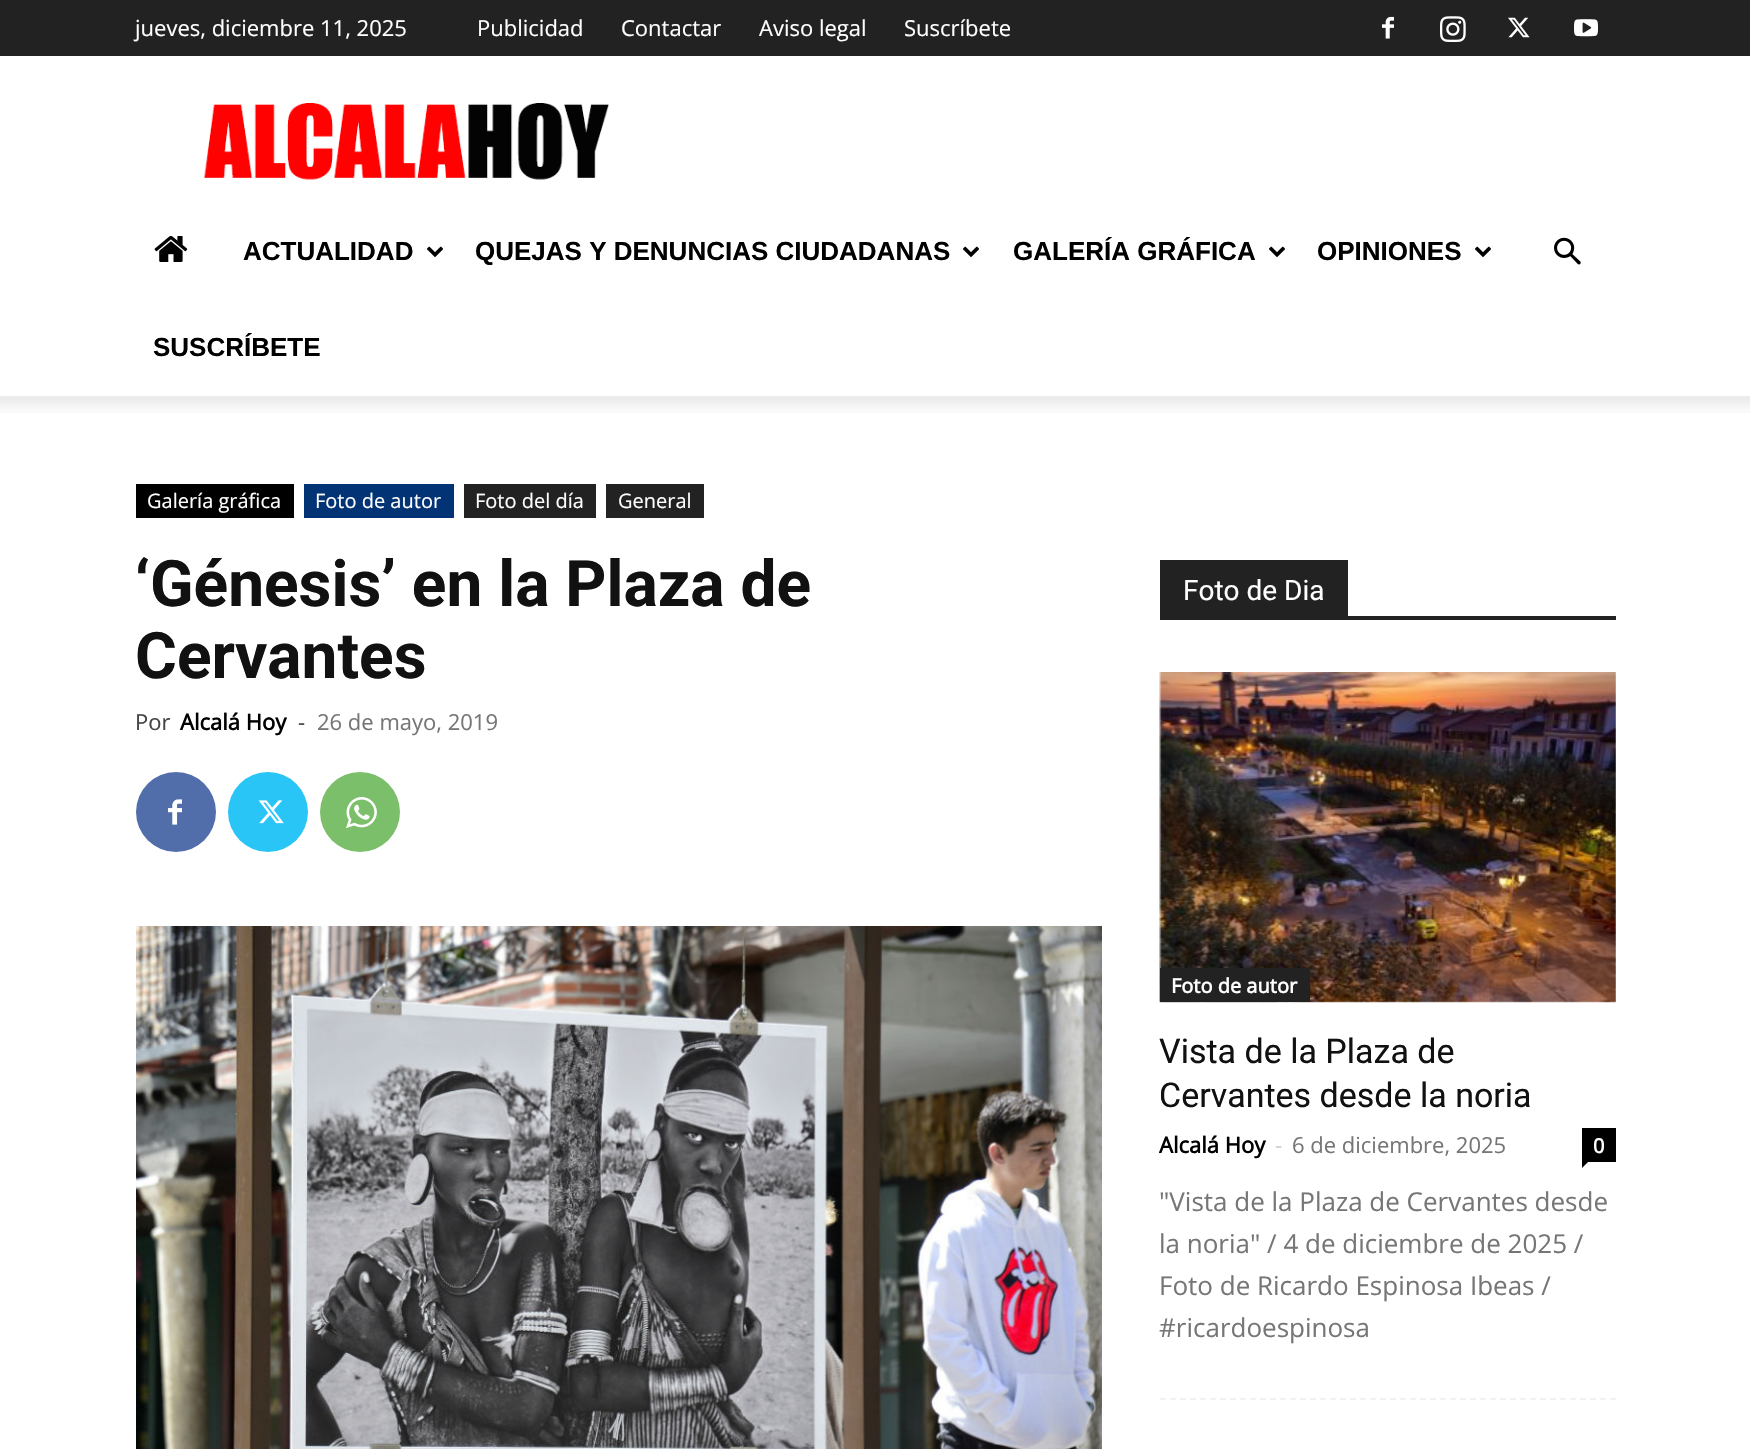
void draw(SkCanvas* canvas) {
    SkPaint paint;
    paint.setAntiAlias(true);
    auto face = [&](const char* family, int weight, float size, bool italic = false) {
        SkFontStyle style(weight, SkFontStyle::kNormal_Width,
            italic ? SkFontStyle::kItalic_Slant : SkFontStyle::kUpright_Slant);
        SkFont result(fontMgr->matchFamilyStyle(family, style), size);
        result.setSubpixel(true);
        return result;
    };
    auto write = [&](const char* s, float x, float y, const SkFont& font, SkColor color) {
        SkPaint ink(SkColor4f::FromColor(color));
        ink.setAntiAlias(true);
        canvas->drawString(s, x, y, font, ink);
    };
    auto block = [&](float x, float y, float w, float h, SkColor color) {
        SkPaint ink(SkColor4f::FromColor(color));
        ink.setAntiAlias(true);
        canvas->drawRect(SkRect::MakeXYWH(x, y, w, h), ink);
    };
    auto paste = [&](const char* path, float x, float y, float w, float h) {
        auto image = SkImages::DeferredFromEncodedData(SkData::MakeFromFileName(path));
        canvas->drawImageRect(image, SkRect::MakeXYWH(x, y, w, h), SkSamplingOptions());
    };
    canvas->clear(SK_ColorWHITE);
    block(0, 0, 1750, 56, SkColorSetRGB(34, 34, 34));
    auto kFont1 = face("Open Sans", 400, 22);
    write("jueves, diciembre 11, 2025", 135, 36, kFont1, SK_ColorWHITE);
    write("Publicidad", 477, 36, kFont1, SK_ColorWHITE);
    write("Contactar", 621, 36, kFont1, SK_ColorWHITE);
    write("Aviso legal", 759, 36, kFont1, SK_ColorWHITE);
    write("Suscríbete", 904, 36, kFont1, SK_ColorWHITE);
    paste("pic1.png", 1382, 16, 12, 23);
    paste("pic2.png", 1440, 16, 26, 26);
    paste("pic3.png", 1508, 17, 22, 21);
    paste("pic4.png", 1574, 19, 24, 18);
    paste("pic5.png", 203, 103, 406, 77);
    paste("pic6.png", 154, 236, 34, 26);
    auto kFont2 = face("Liberation Sans", 700, 26);
    write("ACTUALIDAD", 243, 260, kFont2, SK_ColorBLACK);
    paste("pic7.png", 427, 246, 16, 11);
    write("QUEJAS Y DENUNCIAS CIUDADANAS", 475, 260, kFont2, SK_ColorBLACK);
    paste("pic7.png", 963, 246, 16, 11);
    write("GALERÍA GRÁFICA", 1013, 260, kFont2, SK_ColorBLACK);
    paste("pic7.png", 1269, 246, 16, 11);
    write("OPINIONES", 1317, 260, kFont2, SK_ColorBLACK);
    paste("pic7.png", 1475, 246, 16, 11);
    write("SUSCRÍBETE", 153, 356, kFont2, SK_ColorBLACK);
    paste("pic8.png", 1554, 237, 27, 28);
    paste("pic9.png", 0, 396, 1750, 17);
    block(136, 484, 158, 34, SK_ColorBLACK);
    auto kFont3 = face("Open Sans", 400, 20);
    write("Galería gráfica", 147, 508, kFont3, SK_ColorWHITE);
    block(304, 484, 150, 34, SkColorSetRGB(1, 51, 117));
    write("Foto de autor", 315, 508, kFont3, SK_ColorWHITE);
    block(464, 484, 132, 34, SkColorSetRGB(34, 34, 34));
    write("Foto del día", 475, 508, kFont3, SK_ColorWHITE);
    block(606, 484, 98, 34, SkColorSetRGB(34, 34, 34));
    write("General", 618, 508, kFont3, SK_ColorWHITE);
    auto kFont4 = face("Roboto", 700, 64);
    write("‘Génesis’ en la Plaza de", 135, 606, kFont4, SkColorSetRGB(17, 17, 17));
    write("Cervantes", 135, 678, kFont4, SkColorSetRGB(17, 17, 17));
    write("Por", 135, 730, kFont1, SkColorSetRGB(68, 68, 68));
    auto kFont5 = face("Open Sans", 700, 22);
    write("Alcalá Hoy", 180, 730, kFont5, SK_ColorBLACK);
    write("-", 298, 730, kFont1, SkColorSetRGB(68, 68, 68));
    write("26 de mayo, 2019", 317, 730, kFont1, SkColorSetRGB(118, 118, 118));
    paint.setColor(SkColorSetRGB(81, 110, 171));
    canvas->drawCircle(176, 812, 40, paint);
    paste("pic10.png", 168, 799, 14, 26);
    paint.setColor(SkColorSetRGB(41, 197, 246));
    canvas->drawCircle(268, 812, 40, paint);
    paste("pic11.png", 258, 800, 26, 24);
    paint.setColor(SkColorSetRGB(123, 191, 106));
    canvas->drawCircle(360, 812, 40, paint);
    paste("pic12.png", 346, 797, 31, 31);
    paste("pic13.png", 136, 926, 966, 523);
    block(1160, 616, 456, 4, SkColorSetRGB(34, 34, 34));
    block(1160, 560, 188, 56, SkColorSetRGB(34, 34, 34));
    auto kFont6 = face("Roboto", 400, 28);
    write("Foto de Dia", 1183, 600, kFont6, SK_ColorWHITE);
    paint.setStyle(SkPaint::kStroke_Style);
    paint.setStrokeWidth(2);
    paint.setColor(SkColorSetRGB(242, 242, 242));
    paint.setPathEffect(SkDashPathEffect::Make({{6, 4}}, 0));
    canvas->drawPath(SkPathBuilder().moveTo(1160, 1399).lineTo(1616, 1399).detach(), paint);
    paint.setPathEffect(nullptr);
    paste("pic14.png", 1159, 672, 457, 331);
    block(1160, 968, 150, 34, SkColorSetRGB(34, 34, 34));
    auto kFont7 = face("Open Sans", 700, 20);
    write("Foto de autor", 1171, 993, kFont7, SK_ColorWHITE);
    auto kFont8 = face("Roboto", 400, 34);
    write("Vista de la Plaza de", 1159, 1063, kFont8, SkColorSetRGB(17, 17, 17));
    write("Cervantes desde la noria", 1159, 1107, kFont8, SkColorSetRGB(17, 17, 17));
    write("Alcalá Hoy", 1159, 1153, kFont5, SK_ColorBLACK);
    write("-", 1275, 1153, kFont1, SkColorSetRGB(204, 204, 204));
    write("6 de diciembre, 2025", 1292, 1153, kFont1, SkColorSetRGB(118, 118, 118));
    block(1582, 1128, 34, 34, SK_ColorBLACK);
    write("0", 1593, 1153, kFont7, SK_ColorWHITE);
    paint.setStyle(SkPaint::kFill_Style);
    paint.setColor(SK_ColorBLACK);
    canvas->drawPath(SkPathBuilder().moveTo(1582, 1162).lineTo(1588, 1162).lineTo(1582, 1168).close().detach(), paint);
    auto kFont9 = face("Open Sans", 400, 26);
    write("\"Vista de la Plaza de Cervantes desde", 1159, 1211, kFont9, SkColorSetRGB(118, 118, 118));
    write("la noria\" / 4 de diciembre de 2025 /", 1159, 1253, kFont9, SkColorSetRGB(118, 118, 118));
    write("Foto de Ricardo Espinosa Ibeas /", 1159, 1295, kFont9, SkColorSetRGB(118, 118, 118));
    write("#ricardoespinosa", 1159, 1337, kFont9, SkColorSetRGB(118, 118, 118));
}
